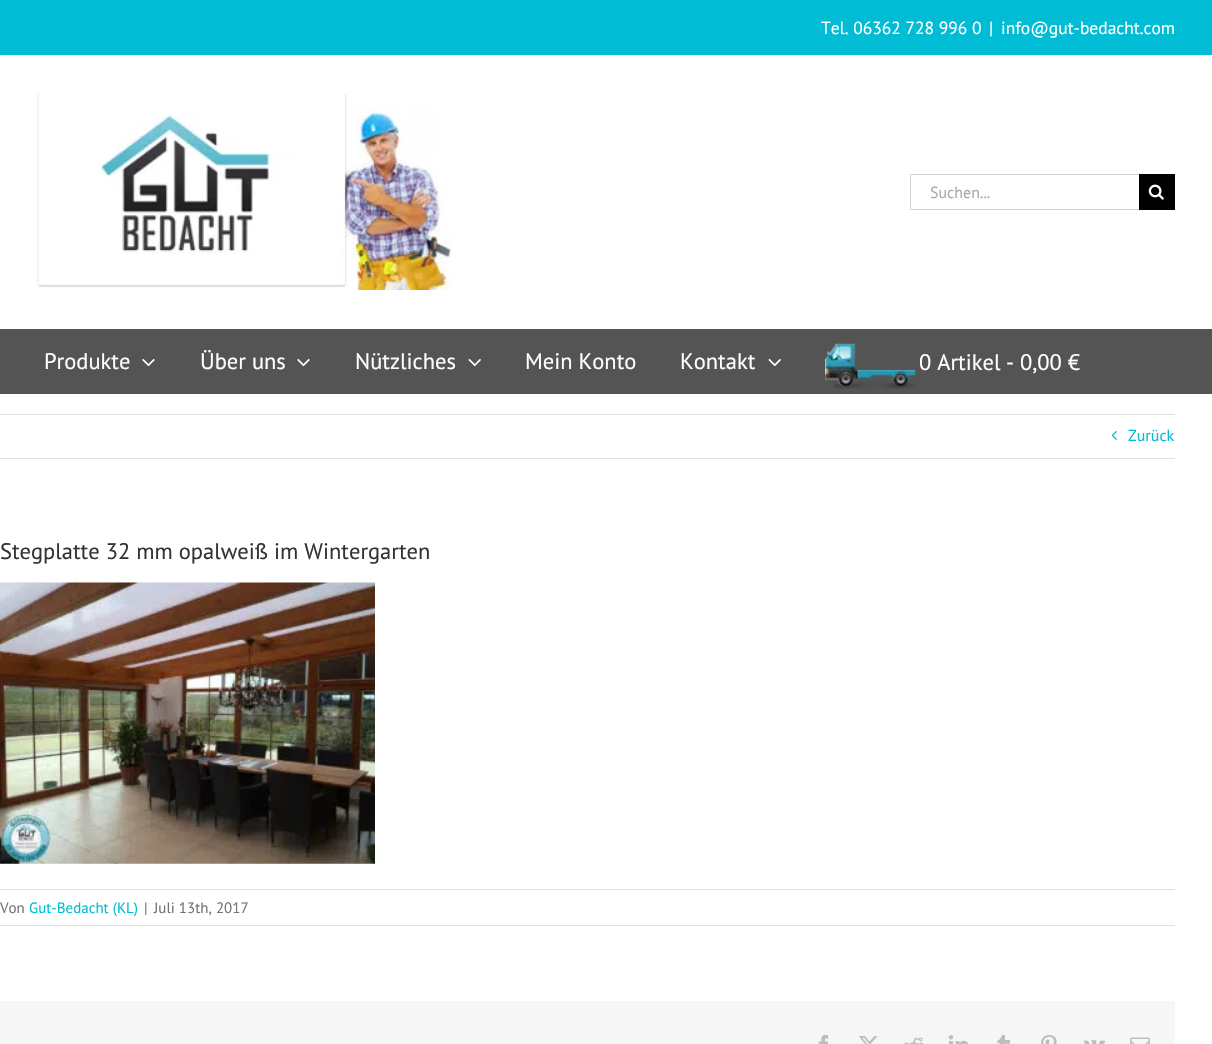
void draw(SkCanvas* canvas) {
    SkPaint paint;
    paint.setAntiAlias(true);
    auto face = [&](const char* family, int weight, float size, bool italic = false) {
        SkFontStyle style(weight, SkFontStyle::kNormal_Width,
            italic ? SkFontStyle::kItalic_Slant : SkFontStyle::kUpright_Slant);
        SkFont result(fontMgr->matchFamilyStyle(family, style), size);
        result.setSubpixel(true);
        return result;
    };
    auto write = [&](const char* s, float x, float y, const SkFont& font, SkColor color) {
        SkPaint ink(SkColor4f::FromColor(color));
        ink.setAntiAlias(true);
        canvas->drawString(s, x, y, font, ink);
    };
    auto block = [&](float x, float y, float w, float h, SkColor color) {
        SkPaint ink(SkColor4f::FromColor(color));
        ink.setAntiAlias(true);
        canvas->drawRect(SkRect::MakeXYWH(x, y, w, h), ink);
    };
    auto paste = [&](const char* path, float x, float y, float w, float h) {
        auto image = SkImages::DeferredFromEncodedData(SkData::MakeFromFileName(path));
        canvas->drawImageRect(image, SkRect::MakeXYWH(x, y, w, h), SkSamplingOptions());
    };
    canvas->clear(SK_ColorWHITE);
    block(0, 0, 1212, 55, SkColorSetRGB(0, 188, 212));
    auto kFont1 = face("PT Sans", 400, 17.5f);
    write("Tel. 06362 728 996 0", 821, 34, kFont1, SK_ColorWHITE);
    write("|", 989, 34, kFont1, SK_ColorWHITE);
    write("info@gut-bedacht.com", 1001, 34, kFont1, SK_ColorWHITE);
    paste("pic1.png", 37, 93, 415, 197);
    block(910, 174, 229, 1, SkColorSetRGB(210, 210, 210));
    block(910, 209, 229, 1, SkColorSetRGB(210, 210, 210));
    block(910, 174, 1, 36, SkColorSetRGB(210, 210, 210));
    auto kFont2 = face("PT Sans", 400, 16);
    write("Suchen...", 930, 198, kFont2, SkColorSetRGB(170, 169, 169));
    block(1139, 174, 36, 36, SK_ColorBLACK);
    paste("pic2.png", 1148, 184, 16, 16);
    block(0, 329, 1212, 65, SkColorSetRGB(84, 84, 84));
    auto kFont3 = face("PT Sans", 400, 22.5f);
    write("Produkte", 44, 369, kFont3, SK_ColorWHITE);
    paste("pic3.png", 142, 359, 13, 8);
    write("Über uns", 200, 369, kFont3, SK_ColorWHITE);
    paste("pic3.png", 297, 359, 13, 8);
    write("Nützliches", 355, 369, kFont3, SK_ColorWHITE);
    paste("pic4.png", 468, 359, 13, 8);
    write("Mein Konto", 525, 369, kFont3, SK_ColorWHITE);
    write("Kontakt", 680, 369, kFont3, SK_ColorWHITE);
    paste("pic4.png", 768, 359, 13, 8);
    paste("pic5.png", 825, 343, 91, 46);
    write("0 Artikel", 919, 370, kFont3, SK_ColorWHITE);
    write("-", 1006, 370, kFont3, SK_ColorWHITE);
    write("0,00 €", 1020, 370, kFont3, SK_ColorWHITE);
    block(0, 414, 1175, 1, SkColorSetRGB(224, 222, 222));
    block(0, 458, 1175, 1, SkColorSetRGB(224, 222, 222));
    paste("pic6.png", 1111, 431, 6, 9);
    write("Zurück", 1128, 441, kFont2, SkColorSetRGB(0, 188, 212));
    write("Stegplatte 32 mm opalweiß im Wintergarten", 0, 559, kFont3, SkColorSetRGB(51, 51, 51));
    paste("pic7.png", 0, 582, 375, 282);
    block(0, 889, 1175, 1, SkColorSetRGB(224, 222, 222));
    block(0, 925, 1175, 1, SkColorSetRGB(224, 222, 222));
    auto kFont4 = face("PT Sans", 400, 15);
    write("Von", 0, 913, kFont4, SkColorSetRGB(116, 116, 116));
    write("Gut-Bedacht (KL)", 29, 913, kFont4, SkColorSetRGB(0, 188, 212));
    write("|", 144, 913, kFont4, SkColorSetRGB(116, 116, 116));
    write("Juli 13th, 2017", 154, 913, kFont4, SkColorSetRGB(116, 116, 116));
    block(0, 1001, 1175, 43, SkColorSetRGB(246, 246, 246));
    paste("pic8.png", 818, 1035, 11, 9);
    paste("pic9.png", 859, 1036, 19, 8);
    paste("pic10.png", 904, 1037, 20, 7);
    paste("pic11.png", 948, 1035, 21, 9);
    paste("pic12.png", 997, 1035, 13, 9);
    paste("pic13.png", 1041, 1035, 16, 9);
    paste("pic14.png", 1083, 1040, 23, 4);
    paste("pic15.png", 1130, 1037, 20, 7);
}
